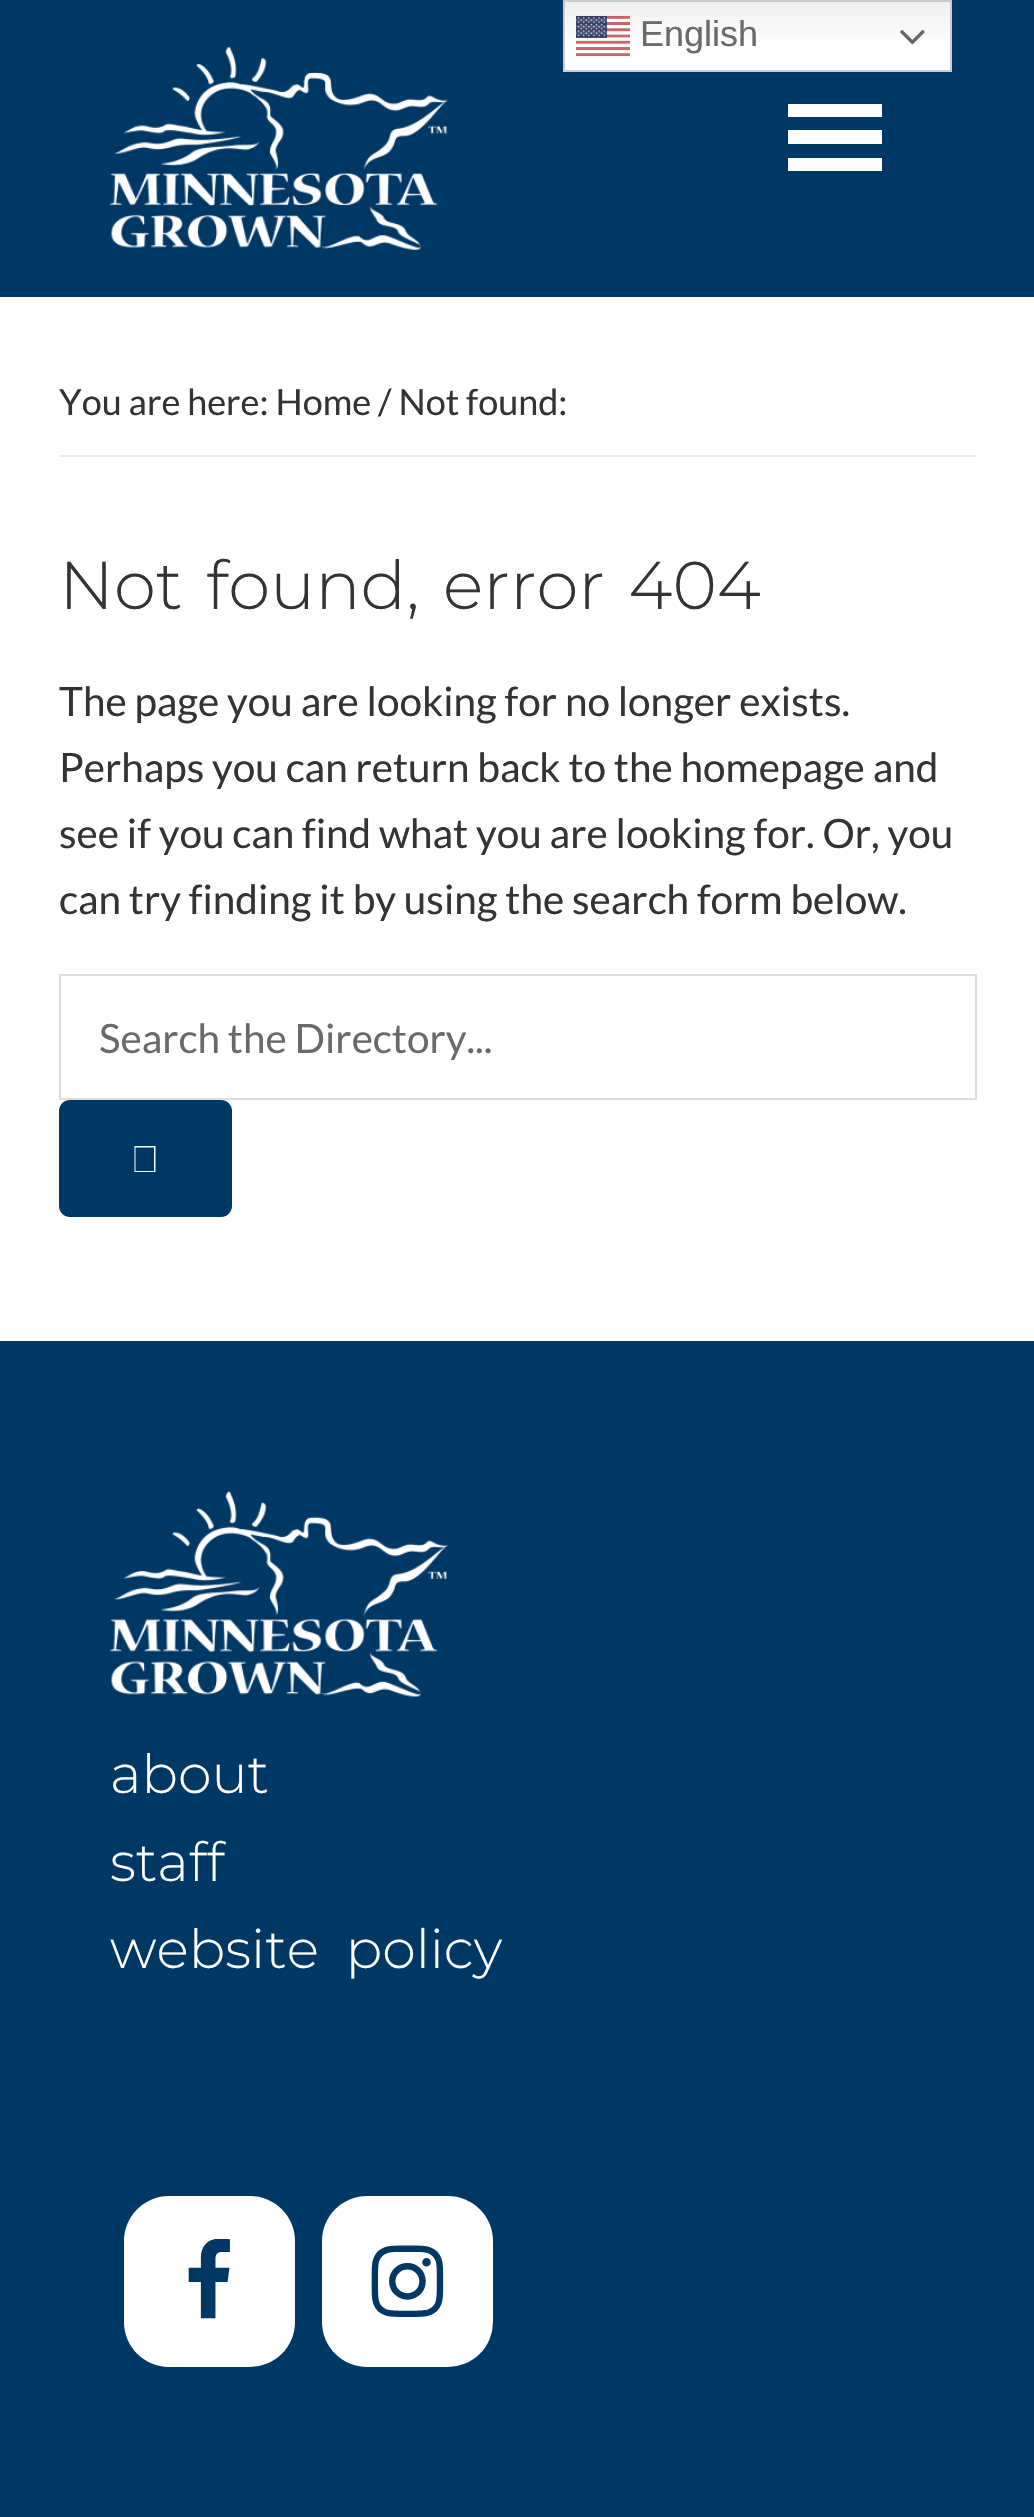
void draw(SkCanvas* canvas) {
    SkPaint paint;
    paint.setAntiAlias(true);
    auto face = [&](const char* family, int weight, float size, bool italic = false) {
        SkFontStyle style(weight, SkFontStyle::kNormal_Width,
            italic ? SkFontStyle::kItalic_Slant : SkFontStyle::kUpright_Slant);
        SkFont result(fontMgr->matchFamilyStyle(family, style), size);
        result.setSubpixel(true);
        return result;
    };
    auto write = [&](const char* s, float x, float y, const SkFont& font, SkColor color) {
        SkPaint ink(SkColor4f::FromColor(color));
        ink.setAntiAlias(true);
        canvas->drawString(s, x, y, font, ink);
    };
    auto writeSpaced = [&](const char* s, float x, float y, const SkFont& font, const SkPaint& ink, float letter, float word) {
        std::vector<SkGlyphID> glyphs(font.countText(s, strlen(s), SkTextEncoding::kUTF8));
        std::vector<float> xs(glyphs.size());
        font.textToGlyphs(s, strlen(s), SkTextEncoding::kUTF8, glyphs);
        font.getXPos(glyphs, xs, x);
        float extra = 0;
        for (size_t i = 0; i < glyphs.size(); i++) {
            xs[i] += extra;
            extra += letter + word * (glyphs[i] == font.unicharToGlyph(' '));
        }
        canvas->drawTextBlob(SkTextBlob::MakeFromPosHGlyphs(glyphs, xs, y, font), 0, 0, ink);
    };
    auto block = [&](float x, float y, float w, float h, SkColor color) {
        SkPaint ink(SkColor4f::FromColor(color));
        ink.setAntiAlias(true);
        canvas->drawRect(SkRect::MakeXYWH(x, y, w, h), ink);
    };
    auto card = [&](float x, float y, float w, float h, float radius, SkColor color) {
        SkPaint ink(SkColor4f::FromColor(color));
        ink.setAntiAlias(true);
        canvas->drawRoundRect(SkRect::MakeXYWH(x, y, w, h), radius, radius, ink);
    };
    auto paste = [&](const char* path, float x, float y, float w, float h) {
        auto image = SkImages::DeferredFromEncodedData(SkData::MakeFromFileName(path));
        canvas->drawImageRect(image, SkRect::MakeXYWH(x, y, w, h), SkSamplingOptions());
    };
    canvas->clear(SK_ColorWHITE);
    block(0, 0, 1034, 297, SkColorSetRGB(0, 56, 101));
    {
        const SkColor colors[] = {SkColorSetRGB(239, 239, 239), SK_ColorWHITE};
        const float stops[] = {0, 0.7f};
        const SkPoint ends[] = {{757, 0}, {757, 72}};
        paint.setShader(SkGradientShader::MakeLinear(ends, colors, stops, 2, SkTileMode::kClamp));
        paint.setAlpha(255);
    }
    canvas->drawRect(SkRect::MakeXYWH(565, 2, 385, 68), paint);
    paint.setStyle(SkPaint::kStroke_Style);
    paint.setStrokeWidth(2);
    paint.setShader(nullptr);
    paint.setColor(SkColorSetRGB(204, 204, 204));
    canvas->drawRect(SkRect::MakeXYWH(564, 1, 387, 70), paint);
    paste("pic1.png", 576, 15, 54, 42);
    auto kFont1 = face("Liberation Sans", 400, 36);
    write("English", 640, 46, kFont1, SkColorSetRGB(105, 105, 105));
    paste("pic2.png", 900, 30, 25, 15);
    paste("pic3.png", 110, 47, 338, 203);
    paint.setStyle(SkPaint::kFill_Style);
    paint.setColor(SK_ColorWHITE);
    canvas->drawPath(SkPathBuilder().moveTo(788, 171).lineTo(882, 171).lineTo(882, 158).lineTo(788, 158).close().moveTo(788, 104).lineTo(788, 117).lineTo(882, 117).lineTo(882, 104).close().moveTo(788, 144).lineTo(882, 144).lineTo(882, 130).lineTo(788, 130).close().detach(), paint);
    block(59, 455, 918, 2, SkColorSetRGB(238, 238, 238));
    auto kFont2 = face("Lato", 400, 36);
    write("You are here: Home / Not found:", 59, 415, kFont2, SkColorSetRGB(51, 51, 51));
    auto kFont3 = face("Montserrat", 300, 67.5f);
    paint.setColor(SkColorSetRGB(51, 51, 51));
    writeSpaced("Not found, error 404", 59, 609, kFont3, paint, 0, 6);
    auto kFont4 = face("Lato", 400, 40.5f);
    write("The page you are looking for no longer exists.", 59, 716, kFont4, SkColorSetRGB(51, 51, 51));
    write("Perhaps you can return back to the homepage and", 59, 782, kFont4, SkColorSetRGB(51, 51, 51));
    write("see if you can find what you are looking for. Or, you", 59, 848, kFont4, SkColorSetRGB(51, 51, 51));
    write("can try finding it by using the search form below.", 59, 914, kFont4, SkColorSetRGB(51, 51, 51));
    paint.setStyle(SkPaint::kStroke_Style);
    paint.setColor(SkColorSetRGB(221, 221, 221));
    canvas->drawRect(SkRect::MakeXYWH(60, 975, 916, 124), paint);
    write("Search the Directory...", 99, 1053, kFont4, SkColorSetRGB(105, 105, 105));
    card(59, 1100, 173, 117, 11, SkColorSetRGB(0, 56, 101));
    paint.setStyle(SkPaint::kFill_Style);
    paint.setColor(SK_ColorWHITE);
    canvas->drawPath(SkPathBuilder().moveTo(134.5f, 1146).lineTo(155.5f, 1146).lineTo(155.5f, 1172).lineTo(134.5f, 1172).close().moveTo(135.5f, 1147.5f).lineTo(135.5f, 1171).lineTo(154, 1171).lineTo(154, 1147.5f).close().detach(), paint);
    block(0, 1341, 1034, 1176, SkColorSetRGB(0, 56, 101));
    paste("pic4.png", 110, 1491, 338, 206);
    auto kFont5 = face("Montserrat", 300, 54);
    write("about", 110, 1793, kFont5, SK_ColorWHITE);
    write("staff", 110, 1881, kFont5, SK_ColorWHITE);
    writeSpaced("website policy", 110, 1968, kFont5, paint, 0, 13);
    card(124, 2196, 171, 171, 45, SK_ColorWHITE);
    paste("pic5.png", 188, 2239, 42, 80);
    card(322, 2196, 171, 171, 45, SK_ColorWHITE);
    paste("pic6.png", 371, 2245, 73, 72);
}
